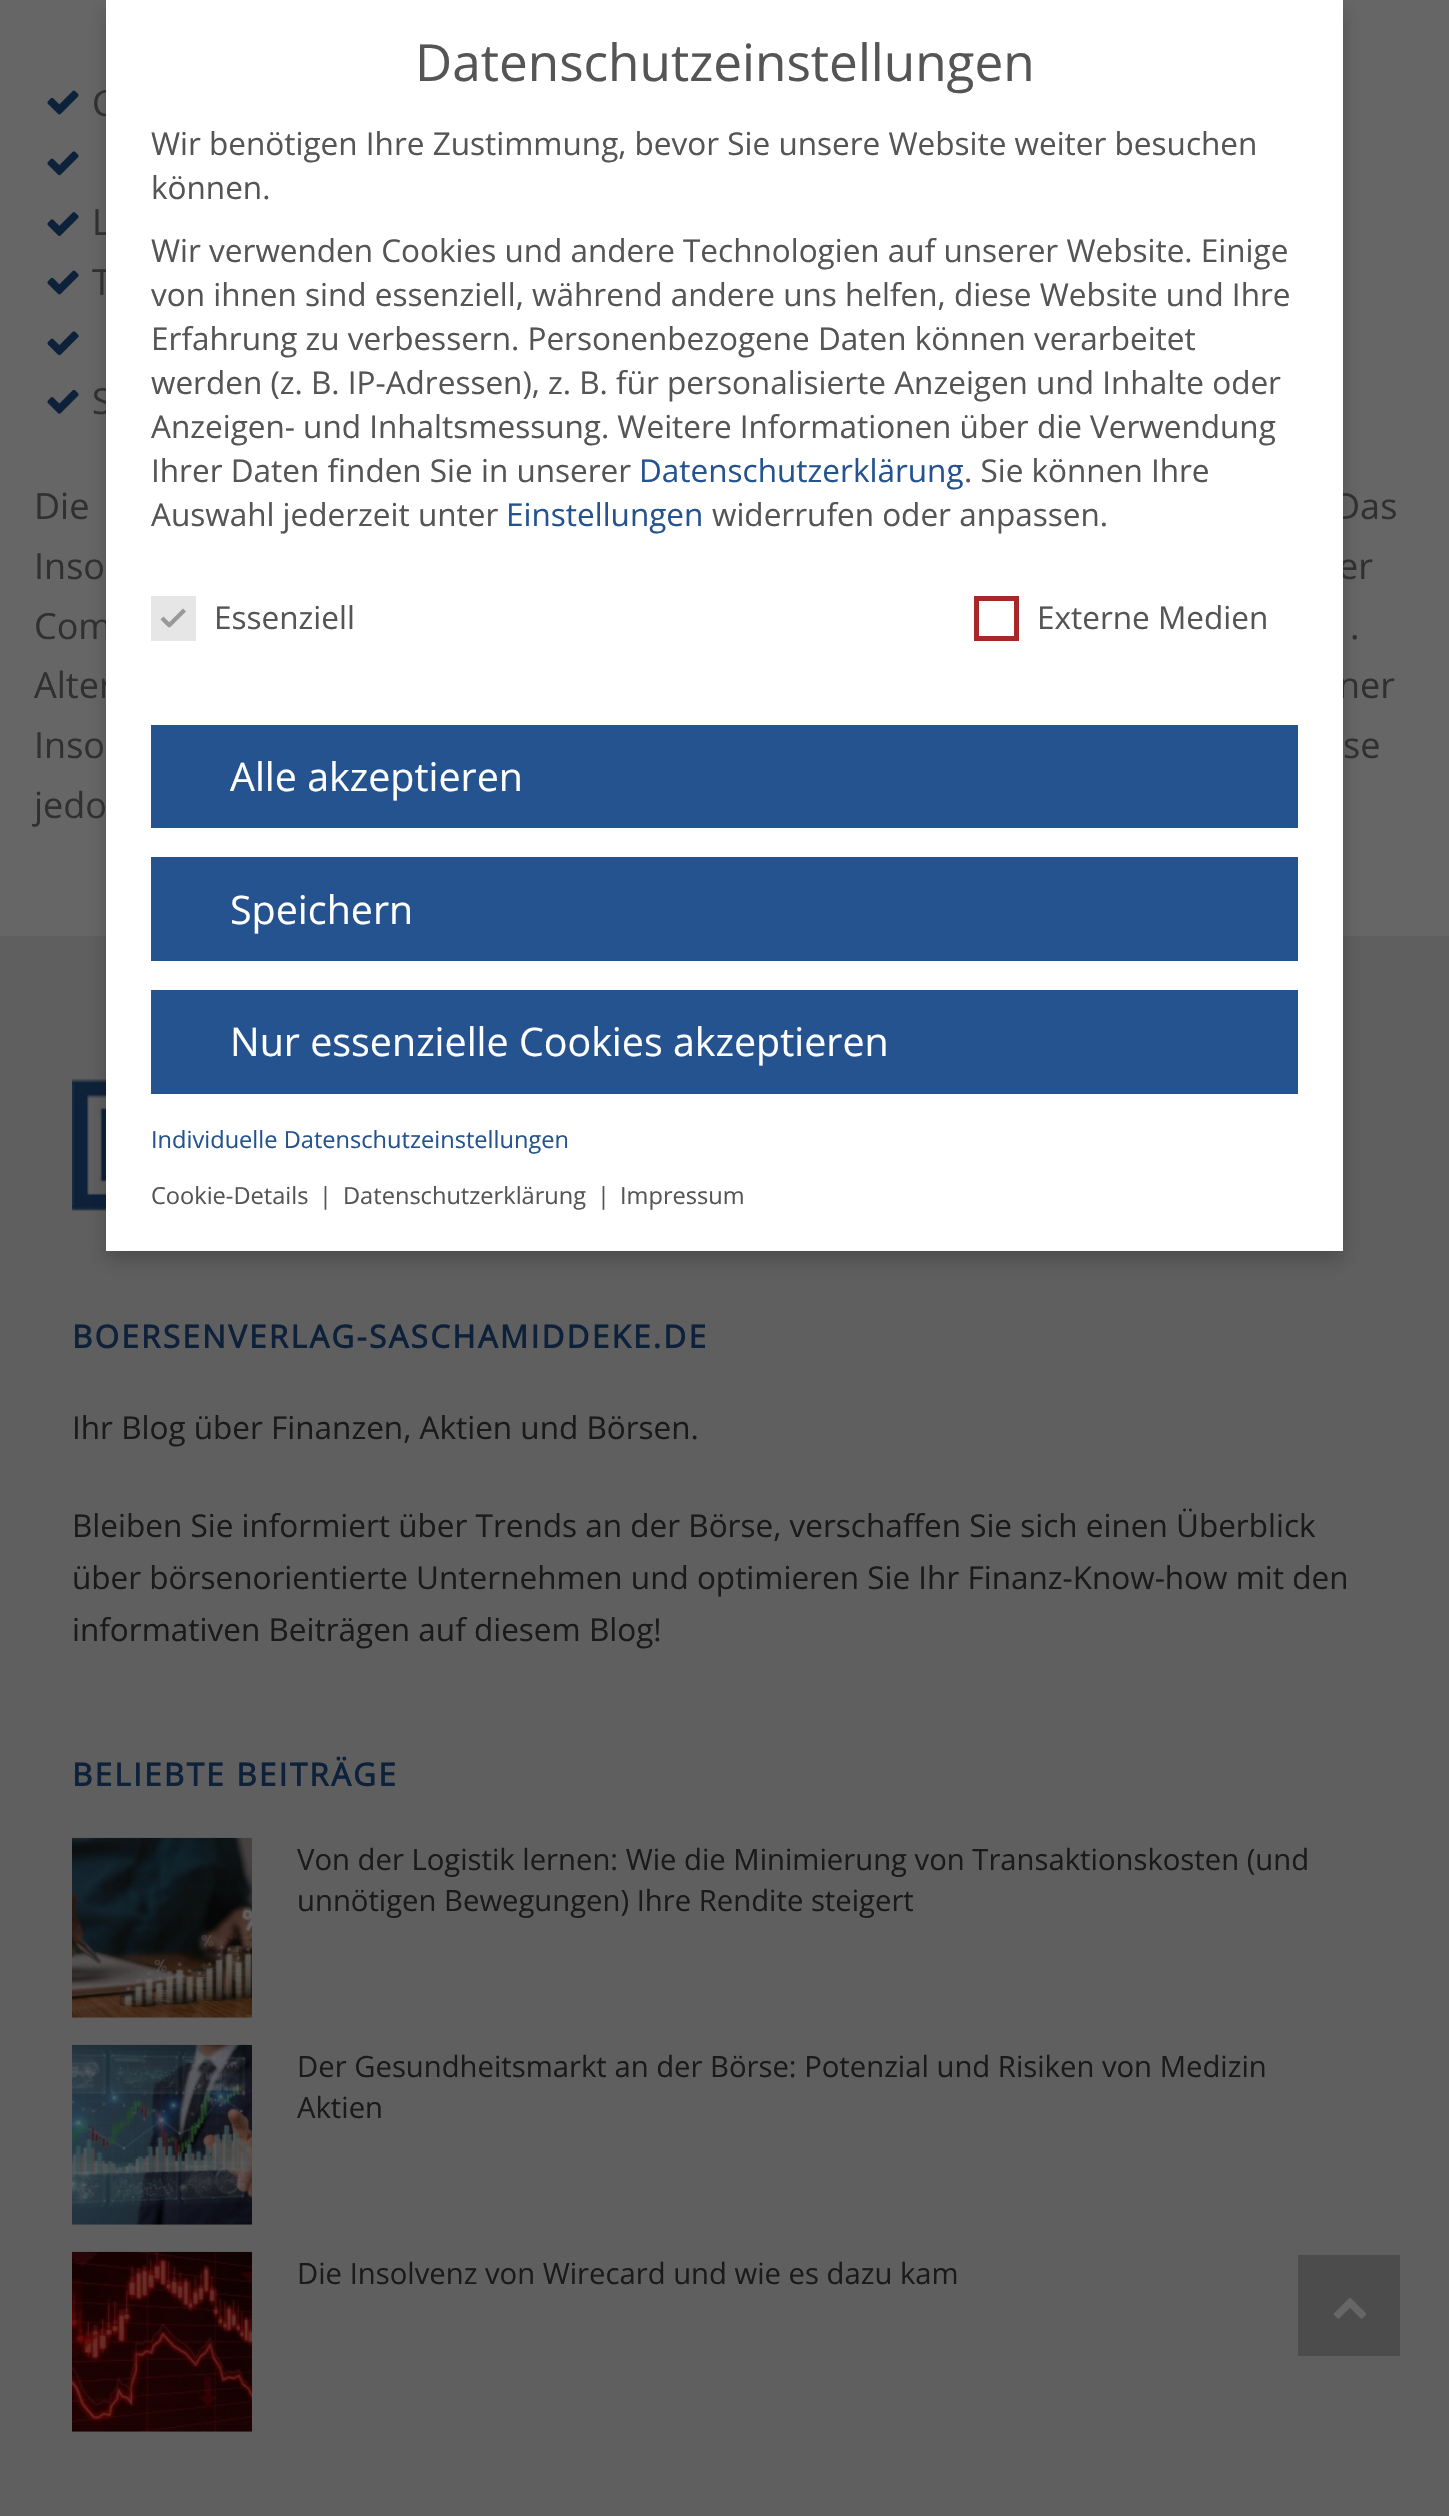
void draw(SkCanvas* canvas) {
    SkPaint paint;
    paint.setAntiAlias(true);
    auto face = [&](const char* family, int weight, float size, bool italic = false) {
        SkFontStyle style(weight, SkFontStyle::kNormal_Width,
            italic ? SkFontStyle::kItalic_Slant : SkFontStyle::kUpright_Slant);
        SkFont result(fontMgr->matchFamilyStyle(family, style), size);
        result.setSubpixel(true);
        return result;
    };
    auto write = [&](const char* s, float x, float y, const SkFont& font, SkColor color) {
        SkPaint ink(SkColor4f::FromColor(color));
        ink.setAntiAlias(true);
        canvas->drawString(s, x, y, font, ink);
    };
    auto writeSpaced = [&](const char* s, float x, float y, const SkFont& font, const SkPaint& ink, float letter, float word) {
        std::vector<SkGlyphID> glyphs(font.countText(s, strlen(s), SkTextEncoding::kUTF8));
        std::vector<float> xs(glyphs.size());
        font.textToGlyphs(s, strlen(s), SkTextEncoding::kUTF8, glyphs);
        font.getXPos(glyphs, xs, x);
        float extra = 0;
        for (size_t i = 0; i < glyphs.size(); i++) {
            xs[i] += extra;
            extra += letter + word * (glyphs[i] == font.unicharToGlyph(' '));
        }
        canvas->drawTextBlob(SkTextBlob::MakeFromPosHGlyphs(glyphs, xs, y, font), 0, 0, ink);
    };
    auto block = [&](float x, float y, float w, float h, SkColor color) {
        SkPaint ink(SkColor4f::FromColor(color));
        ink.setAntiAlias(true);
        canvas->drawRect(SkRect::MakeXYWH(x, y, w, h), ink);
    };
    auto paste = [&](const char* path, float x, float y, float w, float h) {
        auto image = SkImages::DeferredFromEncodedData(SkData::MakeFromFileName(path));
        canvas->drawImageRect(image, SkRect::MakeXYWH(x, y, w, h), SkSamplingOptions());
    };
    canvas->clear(SkColorSetRGB(102, 102, 102));
    paste("pic1.png", 47, 90, 32, 25);
    paste("pic2.png", 47, 151, 32, 25);
    paste("pic3.png", 47, 212, 32, 24);
    paste("pic1.png", 47, 270, 32, 25);
    paste("pic2.png", 47, 331, 32, 25);
    paste("pic4.png", 47, 389, 32, 25);
    block(0, 936, 1449, 1580, SkColorSetRGB(95, 95, 95));
    paste("pic5.png", 72, 1079, 34, 132);
    paint.setColor(SkColorSetARGB(51, 0, 0, 0));
    paint.setMaskFilter(SkMaskFilter::MakeBlur(kNormal_SkBlurStyle, 9));
    canvas->drawRect(SkRect::MakeXYWH(106, 9, 1237, 1251), paint);
    paint.setMaskFilter(nullptr);
    auto kFont1 = face("Open Sans", 400, 36);
    write("C", 92, 116, kFont1, SkColorSetRGB(48, 48, 48));
    write("L", 92, 235, kFont1, SkColorSetRGB(48, 48, 48));
    write("T", 92, 295, kFont1, SkColorSetRGB(48, 48, 48));
    write("S", 92, 414, kFont1, SkColorSetRGB(48, 48, 48));
    write("Das", 1334, 519, kFont1, SkColorSetRGB(48, 48, 48));
    write("er", 1338, 579, kFont1, SkColorSetRGB(48, 48, 48));
    write("Com", 34, 639, kFont1, SkColorSetRGB(48, 48, 48));
    write("Alter", 34, 698, kFont1, SkColorSetRGB(48, 48, 48));
    write("ner", 1338, 698, kFont1, SkColorSetRGB(48, 48, 48));
    block(106, 0, 1237, 1251, SK_ColorWHITE);
    auto kFont2 = face("Open Sans", 400, 51.25f);
    write("Datenschutzeinstellungen", 415, 81, kFont2, SkColorSetRGB(85, 85, 85));
    auto kFont3 = face("Open Sans", 400, 31.5f);
    write("Wir benötigen Ihre Zustimmung, bevor Sie unsere Website weiter besuchen", 151, 155, kFont3, SkColorSetRGB(85, 85, 85));
    write("können.", 151, 199, kFont3, SkColorSetRGB(85, 85, 85));
    write("Wir verwenden Cookies und andere Technologien auf unserer Website. Einige", 151, 262, kFont3, SkColorSetRGB(85, 85, 85));
    write("von ihnen sind essenziell, während andere uns helfen, diese Website und Ihre", 151, 306, kFont3, SkColorSetRGB(85, 85, 85));
    write("Erfahrung zu verbessern. Personenbezogene Daten können verarbeitet", 151, 350, kFont3, SkColorSetRGB(85, 85, 85));
    write("werden (z. B. IP-Adressen), z. B. für personalisierte Anzeigen und Inhalte oder", 151, 394, kFont3, SkColorSetRGB(85, 85, 85));
    write("Anzeigen- und Inhaltsmessung. Weitere Informationen über die Verwendung", 151, 438, kFont3, SkColorSetRGB(85, 85, 85));
    write("Ihrer Daten finden Sie in unserer", 151, 482, kFont3, SkColorSetRGB(85, 85, 85));
    write("Datenschutzerklärung", 639, 482, kFont3, SkColorSetRGB(36, 83, 144));
    write(". Sie können Ihre", 964, 482, kFont3, SkColorSetRGB(85, 85, 85));
    write("Auswahl jederzeit unter", 151, 526, kFont3, SkColorSetRGB(85, 85, 85));
    write("Einstellungen", 506, 526, kFont3, SkColorSetRGB(36, 83, 144));
    write("widerrufen oder anpassen.", 712, 526, kFont3, SkColorSetRGB(85, 85, 85));
    block(151, 596, 45, 45, SkColorSetRGB(230, 230, 230));
    paint.setColor(SkColorSetRGB(153, 153, 153));
    canvas->drawPath(SkPathBuilder().moveTo(183, 608.5f).lineTo(186, 611.5f).lineTo(170, 627.5f).lineTo(167, 624.5f).close().detach(), paint);
    canvas->drawPath(SkPathBuilder().moveTo(163.5f, 616.5f).lineTo(171.5f, 624.5f).lineTo(168.5f, 627.5f).lineTo(160.5f, 619.5f).close().detach(), paint);
    write("Essenziell", 214, 629, kFont3, SkColorSetRGB(85, 85, 85));
    paint.setStyle(SkPaint::kStroke_Style);
    paint.setStrokeWidth(5);
    paint.setColor(SkColorSetRGB(167, 40, 40));
    canvas->drawRect(SkRect::MakeXYWH(976.5f, 598.5f, 40, 40), paint);
    write("Externe Medien", 1037, 629, kFont3, SkColorSetRGB(85, 85, 85));
    block(151, 725, 1147, 103, SkColorSetRGB(36, 83, 144));
    auto kFont4 = face("Open Sans", 400, 39.4f);
    write("Alle akzeptieren", 230, 791, kFont4, SK_ColorWHITE);
    block(151, 857, 1147, 104, SkColorSetRGB(36, 83, 144));
    write("Speichern", 230, 924, kFont4, SK_ColorWHITE);
    block(151, 990, 1147, 104, SkColorSetRGB(36, 83, 144));
    write("Nur essenzielle Cookies akzeptieren", 230, 1056, kFont4, SK_ColorWHITE);
    auto kFont5 = face("Open Sans", 400, 23.6f);
    write("Individuelle Datenschutzeinstellungen", 151, 1148, kFont5, SkColorSetRGB(36, 83, 144));
    write("Cookie-Details", 151, 1204, kFont5, SkColorSetRGB(85, 85, 85));
    write("|", 319, 1204, kFont5, SkColorSetRGB(85, 85, 85));
    write("Datenschutzerklärung", 343, 1204, kFont5, SkColorSetRGB(85, 85, 85));
    write("|", 597, 1204, kFont5, SkColorSetRGB(85, 85, 85));
    write("Impressum", 620, 1204, kFont5, SkColorSetRGB(85, 85, 85));
    write("Die", 34, 519, kFont1, SkColorSetRGB(48, 48, 48));
    write("Inso", 34, 579, kFont1, SkColorSetRGB(48, 48, 48));
    write(".", 1350, 639, kFont1, SkColorSetRGB(48, 48, 48));
    write("Inso", 34, 758, kFont1, SkColorSetRGB(48, 48, 48));
    write("se", 1343, 758, kFont1, SkColorSetRGB(48, 48, 48));
    write("jedo", 34, 818, kFont1, SkColorSetRGB(48, 48, 48));
    auto kFont6 = face("Open Sans", 700, 31.5f);
    paint.setStyle(SkPaint::kFill_Style);
    paint.setColor(SkColorSetRGB(14, 33, 58));
    writeSpaced("BOERSENVERLAG-SASCHAMIDDEKE.DE", 72, 1348, kFont6, paint, 2.25f, 0);
    write("Ihr Blog über Finanzen, Aktien und Börsen.", 72, 1439, kFont3, SkColorSetRGB(26, 26, 26));
    write("Bleiben Sie informiert über Trends an der Börse, verschaffen Sie sich einen Überblick", 72, 1537, kFont3, SkColorSetRGB(26, 26, 26));
    write("über börsenorientierte Unternehmen und optimieren Sie Ihr Finanz-Know-how mit den", 72, 1589, kFont3, SkColorSetRGB(26, 26, 26));
    write("informativen Beiträgen auf diesem Blog!", 72, 1641, kFont3, SkColorSetRGB(26, 26, 26));
    writeSpaced("BELIEBTE BEITRÄGE", 72, 1786, kFont6, paint, 2.25f, 0);
    paste("pic6.png", 72, 1837, 180, 181);
    auto kFont7 = face("Open Sans", 400, 29.25f);
    write("Von der Logistik lernen: Wie die Minimierung von Transaktionskosten (und", 297, 1870, kFont7, SkColorSetRGB(26, 26, 26));
    write("unnötigen Bewegungen) Ihre Rendite steigert", 297, 1911, kFont7, SkColorSetRGB(26, 26, 26));
    paste("pic7.png", 72, 2044, 180, 181);
    write("Der Gesundheitsmarkt an der Börse: Potenzial und Risiken von Medizin", 297, 2077, kFont7, SkColorSetRGB(26, 26, 26));
    write("Aktien", 297, 2118, kFont7, SkColorSetRGB(26, 26, 26));
    paste("pic8.png", 72, 2251, 180, 181);
    write("Die Insolvenz von Wirecard und wie es dazu kam", 297, 2284, kFont7, SkColorSetRGB(26, 26, 26));
    block(1298, 2255, 102, 101, SkColorSetRGB(76, 76, 76));
    paste("pic9.png", 1333, 2298, 34, 21);
}
